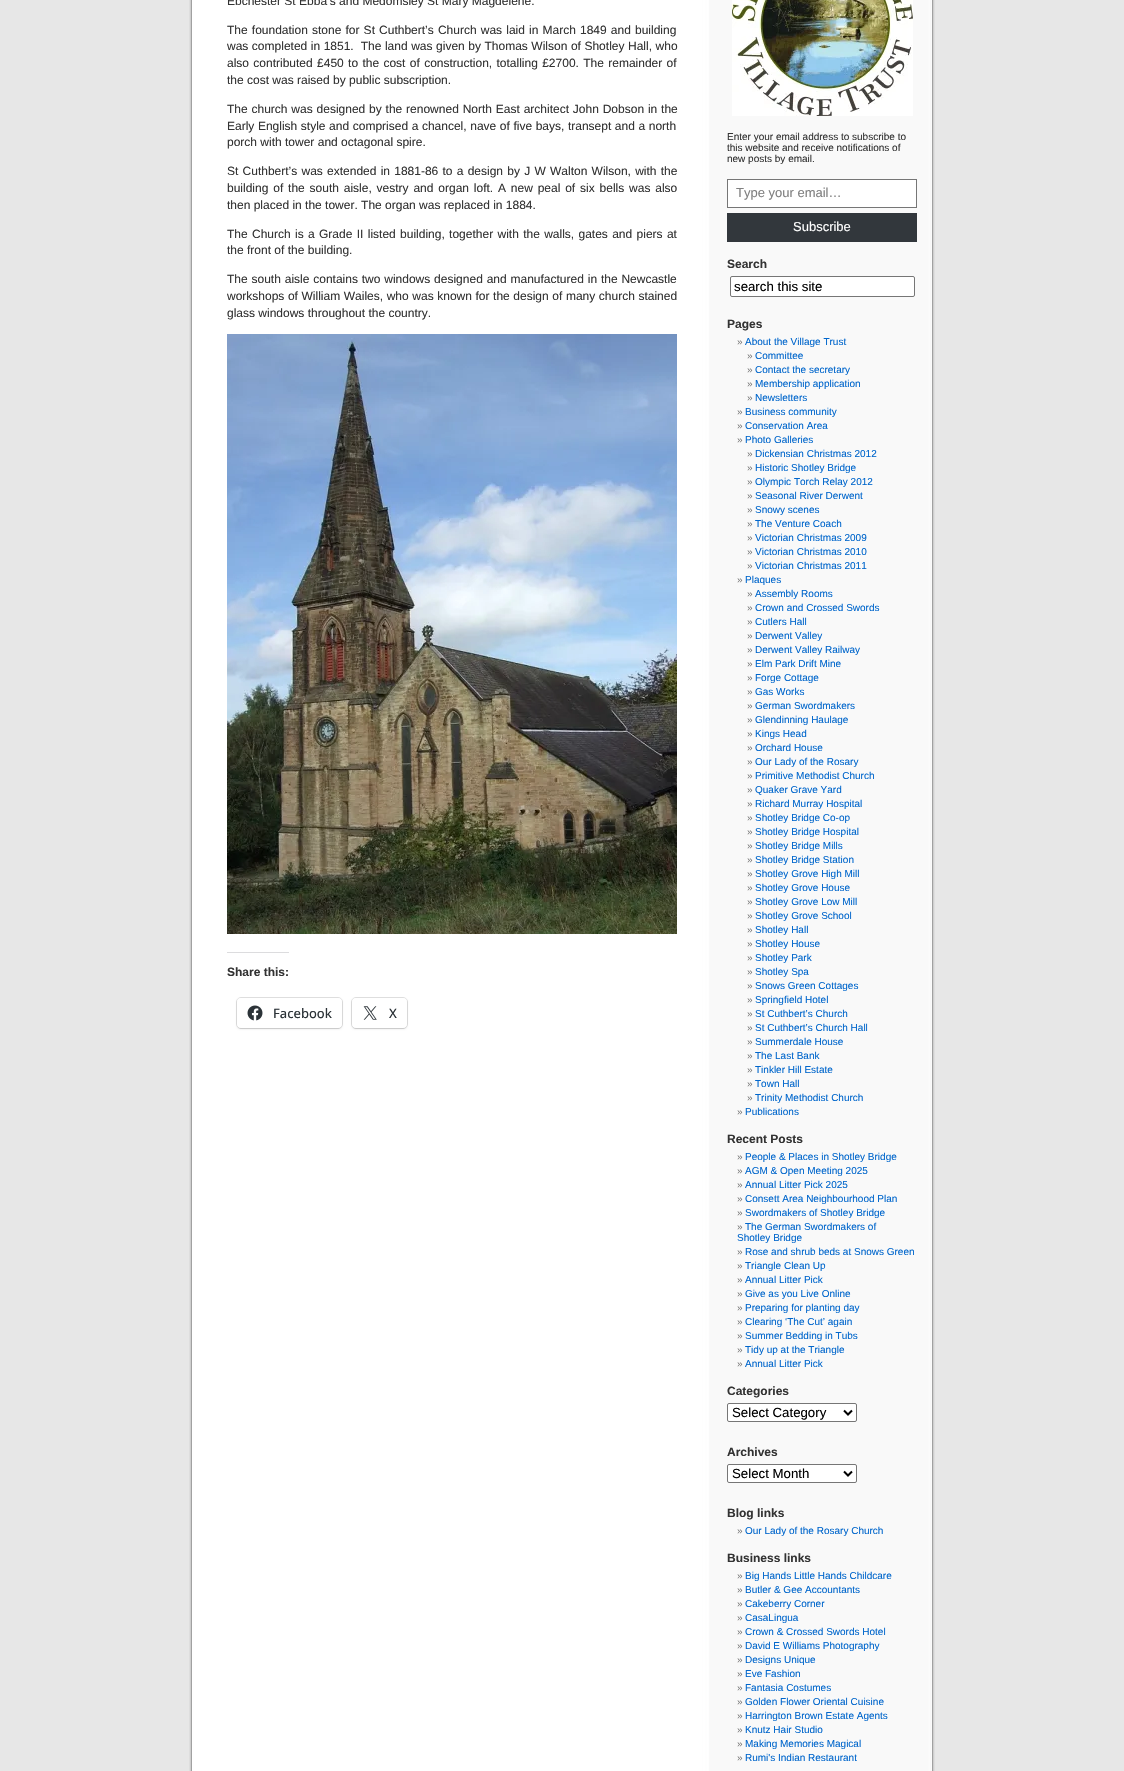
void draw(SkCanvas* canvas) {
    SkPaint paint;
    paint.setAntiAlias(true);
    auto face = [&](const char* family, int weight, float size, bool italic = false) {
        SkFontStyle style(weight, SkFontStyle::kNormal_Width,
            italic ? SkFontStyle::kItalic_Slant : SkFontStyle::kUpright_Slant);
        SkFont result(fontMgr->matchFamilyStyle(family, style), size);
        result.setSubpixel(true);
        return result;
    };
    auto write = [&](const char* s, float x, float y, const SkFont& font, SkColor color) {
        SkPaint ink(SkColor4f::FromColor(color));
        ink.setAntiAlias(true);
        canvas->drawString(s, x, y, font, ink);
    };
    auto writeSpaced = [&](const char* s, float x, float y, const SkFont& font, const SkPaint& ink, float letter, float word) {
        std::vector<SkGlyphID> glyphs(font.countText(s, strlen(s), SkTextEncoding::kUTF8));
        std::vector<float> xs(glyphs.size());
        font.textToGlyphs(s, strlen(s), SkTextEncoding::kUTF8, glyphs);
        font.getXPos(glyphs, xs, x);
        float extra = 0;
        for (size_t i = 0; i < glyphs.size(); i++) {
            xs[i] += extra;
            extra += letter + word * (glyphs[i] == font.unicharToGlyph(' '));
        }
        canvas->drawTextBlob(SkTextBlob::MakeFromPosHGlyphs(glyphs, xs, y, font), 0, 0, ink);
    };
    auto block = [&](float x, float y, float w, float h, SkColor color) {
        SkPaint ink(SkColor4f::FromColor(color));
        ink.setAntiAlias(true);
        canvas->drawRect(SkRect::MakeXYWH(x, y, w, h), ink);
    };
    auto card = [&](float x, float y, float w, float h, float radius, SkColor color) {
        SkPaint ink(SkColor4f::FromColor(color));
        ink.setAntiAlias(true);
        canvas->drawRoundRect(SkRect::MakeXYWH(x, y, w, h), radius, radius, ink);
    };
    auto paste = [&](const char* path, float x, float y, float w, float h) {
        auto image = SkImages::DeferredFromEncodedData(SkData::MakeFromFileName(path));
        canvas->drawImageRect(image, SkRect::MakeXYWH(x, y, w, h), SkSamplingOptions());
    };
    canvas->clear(SkColorSetRGB(231, 231, 231));
    paste("pic1.png", 189, 0, 746, 1771);
    auto kFont1 = face("Liberation Sans", 400, 12);
    write("Ebchester St Ebba’s and Medomsley St Mary Magdelene.", 227, 5, kFont1, SkColorSetRGB(51, 51, 51));
    paint.setColor(SkColorSetRGB(51, 51, 51));
    writeSpaced("The foundation stone for St Cuthbert’s Church was laid in March 1849 and building", 227, 34, kFont1, paint, 0, 0.8f);
    writeSpaced("was completed in 1851.  The land was given by Thomas Wilson of Shotley Hall, who", 227, 50, kFont1, paint, 0, 0.2f);
    writeSpaced("also contributed £450 to the cost of construction, totalling £2700. The remainder of", 227, 67, kFont1, paint, 0, 1);
    write("the cost was raised by public subscription.", 227, 84, kFont1, SkColorSetRGB(51, 51, 51));
    writeSpaced("The church was designed by the renowned North East architect John Dobson in the", 227, 113, kFont1, paint, 0, 0.5f);
    writeSpaced("Early English style and comprised a chancel, nave of five bays, transept and a north", 227, 130, kFont1, paint, 0, 0.25f);
    write("porch with tower and octagonal spire.", 227, 146, kFont1, SkColorSetRGB(51, 51, 51));
    writeSpaced("St Cuthbert’s was extended in 1881-86 to a design by J W Walton Wilson, with the", 227, 175, kFont1, paint, 0, 0.9f);
    writeSpaced("building of the south aisle, vestry and organ loft. A new peal of six bells was also", 227, 192, kFont1, paint, 0, 1.5f);
    write("then placed in the tower. The organ was replaced in 1884.", 227, 209, kFont1, SkColorSetRGB(51, 51, 51));
    writeSpaced("The Church is a Grade II listed building, together with the walls, gates and piers at", 227, 238, kFont1, paint, 0, 1);
    write("the front of the building.", 227, 254, kFont1, SkColorSetRGB(51, 51, 51));
    writeSpaced("The south aisle contains two windows designed and manufactured in the Newcastle", 227, 283, kFont1, paint, 0, 0.5f);
    writeSpaced("workshops of William Wailes, who was known for the design of many church stained", 227, 300, kFont1, paint, 0, 0.25f);
    write("glass windows throughout the country.", 227, 317, kFont1, SkColorSetRGB(51, 51, 51));
    paste("pic2.png", 227, 334, 450, 600);
    block(227, 952, 62, 1, SkColorSetRGB(220, 220, 222));
    auto kFont2 = face("Liberation Sans", 700, 12);
    write("Share this:", 227, 976, kFont2, SkColorSetRGB(51, 51, 51));
    paint.setStyle(SkPaint::kStroke_Style);
    paint.setStrokeWidth(1);
    paint.setColor(SkColorSetRGB(224, 224, 224));
    canvas->drawRoundRect(SkRect::MakeXYWH(236.5f, 997.5f, 106, 31), 4.5f, 4.5f, paint);
    paint.setStyle(SkPaint::kFill_Style);
    paint.setColor(SkColorSetARGB(31, 0, 0, 0));
    paint.setMaskFilter(SkMaskFilter::MakeBlur(kNormal_SkBlurStyle, 1));
    canvas->drawRoundRect(SkRect::MakeXYWH(237, 999, 105, 30), 4, 4, paint);
    paint.setMaskFilter(nullptr);
    card(237, 998, 105, 30, 4, SK_ColorWHITE);
    paste("pic3.png", 247, 1005, 16, 16);
    auto kFont3 = face("Open Sans", 500, 13);
    write("Facebook", 273, 1018, kFont3, SkColorSetRGB(44, 51, 56));
    paint.setStyle(SkPaint::kStroke_Style);
    paint.setColor(SkColorSetRGB(224, 224, 224));
    canvas->drawRoundRect(SkRect::MakeXYWH(351.5f, 997.5f, 56, 31), 4.5f, 4.5f, paint);
    paint.setStyle(SkPaint::kFill_Style);
    paint.setColor(SkColorSetARGB(31, 0, 0, 0));
    paint.setMaskFilter(SkMaskFilter::MakeBlur(kNormal_SkBlurStyle, 1));
    canvas->drawRoundRect(SkRect::MakeXYWH(352, 999, 55, 30), 4, 4, paint);
    paint.setMaskFilter(nullptr);
    card(352, 998, 55, 30, 4, SK_ColorWHITE);
    paste("pic4.png", 363, 1006, 14, 14);
    write("X", 389, 1018, kFont3, SkColorSetRGB(44, 51, 56));
    paste("pic5.png", 732, 0, 181, 116);
    auto kFont4 = face("Liberation Sans", 400, 10);
    write("Enter your email address to subscribe to", 727, 140, kFont4, SkColorSetRGB(51, 51, 51));
    write("this website and receive notifications of", 727, 151, kFont4, SkColorSetRGB(51, 51, 51));
    write("new posts by email.", 727, 162, kFont4, SkColorSetRGB(51, 51, 51));
    paint.setColor(SK_ColorWHITE);
    canvas->drawRect(SkRect::MakeXYWH(727.5f, 179.5f, 189, 28), paint);
    paint.setStyle(SkPaint::kStroke_Style);
    paint.setColor(SkColorSetRGB(118, 118, 118));
    canvas->drawRect(SkRect::MakeXYWH(727.5f, 179.5f, 189, 28), paint);
    auto kFont5 = face("Liberation Sans", 400, 13);
    write("Type your email…", 736, 197, kFont5, SkColorSetRGB(128, 128, 128));
    block(727, 213, 190, 29, SkColorSetRGB(50, 55, 60));
    write("Subscribe", 793, 231, kFont5, SK_ColorWHITE);
    write("Search", 727, 268, kFont2, SkColorSetRGB(51, 51, 51));
    paint.setStyle(SkPaint::kFill_Style);
    paint.setColor(SK_ColorWHITE);
    canvas->drawRoundRect(SkRect::MakeXYWH(730.5f, 276.5f, 184, 20), 1.5f, 1.5f, paint);
    paint.setStyle(SkPaint::kStroke_Style);
    paint.setColor(SkColorSetRGB(118, 118, 118));
    canvas->drawRoundRect(SkRect::MakeXYWH(730.5f, 276.5f, 184, 20), 1.5f, 1.5f, paint);
    auto kFont6 = face("Liberation Sans", 400, 13.25f);
    write("search this site", 734, 291, kFont6, SK_ColorBLACK);
    write("Pages", 727, 328, kFont2, SkColorSetRGB(51, 51, 51));
    write("»", 737, 345, kFont4, SkColorSetRGB(119, 119, 119));
    write("About the Village Trust", 745, 345, kFont4, SkColorSetRGB(0, 102, 204));
    write("»", 747, 359, kFont4, SkColorSetRGB(119, 119, 119));
    write("Committee", 755, 359, kFont4, SkColorSetRGB(0, 102, 204));
    write("»", 747, 373, kFont4, SkColorSetRGB(119, 119, 119));
    write("Contact the secretary", 755, 373, kFont4, SkColorSetRGB(0, 102, 204));
    write("»", 747, 387, kFont4, SkColorSetRGB(119, 119, 119));
    write("Membership application", 755, 387, kFont4, SkColorSetRGB(0, 102, 204));
    write("»", 747, 401, kFont4, SkColorSetRGB(119, 119, 119));
    write("Newsletters", 755, 401, kFont4, SkColorSetRGB(0, 102, 204));
    write("»", 737, 415, kFont4, SkColorSetRGB(119, 119, 119));
    write("Business community", 745, 415, kFont4, SkColorSetRGB(0, 102, 204));
    write("»", 737, 429, kFont4, SkColorSetRGB(119, 119, 119));
    write("Conservation Area", 745, 429, kFont4, SkColorSetRGB(0, 102, 204));
    write("»", 737, 443, kFont4, SkColorSetRGB(119, 119, 119));
    write("Photo Galleries", 745, 443, kFont4, SkColorSetRGB(0, 102, 204));
    write("»", 747, 457, kFont4, SkColorSetRGB(119, 119, 119));
    write("Dickensian Christmas 2012", 755, 457, kFont4, SkColorSetRGB(0, 102, 204));
    write("»", 747, 471, kFont4, SkColorSetRGB(119, 119, 119));
    write("Historic Shotley Bridge", 755, 471, kFont4, SkColorSetRGB(0, 102, 204));
    write("»", 747, 485, kFont4, SkColorSetRGB(119, 119, 119));
    write("Olympic Torch Relay 2012", 755, 485, kFont4, SkColorSetRGB(0, 102, 204));
    write("»", 747, 499, kFont4, SkColorSetRGB(119, 119, 119));
    write("Seasonal River Derwent", 755, 499, kFont4, SkColorSetRGB(0, 102, 204));
    write("»", 747, 513, kFont4, SkColorSetRGB(119, 119, 119));
    write("Snowy scenes", 755, 513, kFont4, SkColorSetRGB(0, 102, 204));
    write("»", 747, 527, kFont4, SkColorSetRGB(119, 119, 119));
    write("The Venture Coach", 755, 527, kFont4, SkColorSetRGB(0, 102, 204));
    write("»", 747, 541, kFont4, SkColorSetRGB(119, 119, 119));
    write("Victorian Christmas 2009", 755, 541, kFont4, SkColorSetRGB(0, 102, 204));
    write("»", 747, 555, kFont4, SkColorSetRGB(119, 119, 119));
    write("Victorian Christmas 2010", 755, 555, kFont4, SkColorSetRGB(0, 102, 204));
    write("»", 747, 569, kFont4, SkColorSetRGB(119, 119, 119));
    write("Victorian Christmas 2011", 755, 569, kFont4, SkColorSetRGB(0, 102, 204));
    write("»", 737, 583, kFont4, SkColorSetRGB(119, 119, 119));
    write("Plaques", 745, 583, kFont4, SkColorSetRGB(0, 102, 204));
    write("»", 747, 597, kFont4, SkColorSetRGB(119, 119, 119));
    write("Assembly Rooms", 755, 597, kFont4, SkColorSetRGB(0, 102, 204));
    write("»", 747, 611, kFont4, SkColorSetRGB(119, 119, 119));
    write("Crown and Crossed Swords", 755, 611, kFont4, SkColorSetRGB(0, 102, 204));
    write("»", 747, 625, kFont4, SkColorSetRGB(119, 119, 119));
    write("Cutlers Hall", 755, 625, kFont4, SkColorSetRGB(0, 102, 204));
    write("»", 747, 639, kFont4, SkColorSetRGB(119, 119, 119));
    write("Derwent Valley", 755, 639, kFont4, SkColorSetRGB(0, 102, 204));
    write("»", 747, 653, kFont4, SkColorSetRGB(119, 119, 119));
    write("Derwent Valley Railway", 755, 653, kFont4, SkColorSetRGB(0, 102, 204));
    write("»", 747, 667, kFont4, SkColorSetRGB(119, 119, 119));
    write("Elm Park Drift Mine", 755, 667, kFont4, SkColorSetRGB(0, 102, 204));
    write("»", 747, 681, kFont4, SkColorSetRGB(119, 119, 119));
    write("Forge Cottage", 755, 681, kFont4, SkColorSetRGB(0, 102, 204));
    write("»", 747, 695, kFont4, SkColorSetRGB(119, 119, 119));
    write("Gas Works", 755, 695, kFont4, SkColorSetRGB(0, 102, 204));
    write("»", 747, 709, kFont4, SkColorSetRGB(119, 119, 119));
    write("German Swordmakers", 755, 709, kFont4, SkColorSetRGB(0, 102, 204));
    write("»", 747, 723, kFont4, SkColorSetRGB(119, 119, 119));
    write("Glendinning Haulage", 755, 723, kFont4, SkColorSetRGB(0, 102, 204));
    write("»", 747, 737, kFont4, SkColorSetRGB(119, 119, 119));
    write("Kings Head", 755, 737, kFont4, SkColorSetRGB(0, 102, 204));
    write("»", 747, 751, kFont4, SkColorSetRGB(119, 119, 119));
    write("Orchard House", 755, 751, kFont4, SkColorSetRGB(0, 102, 204));
    write("»", 747, 765, kFont4, SkColorSetRGB(119, 119, 119));
    write("Our Lady of the Rosary", 755, 765, kFont4, SkColorSetRGB(0, 102, 204));
    write("»", 747, 779, kFont4, SkColorSetRGB(119, 119, 119));
    write("Primitive Methodist Church", 755, 779, kFont4, SkColorSetRGB(0, 102, 204));
    write("»", 747, 793, kFont4, SkColorSetRGB(119, 119, 119));
    write("Quaker Grave Yard", 755, 793, kFont4, SkColorSetRGB(0, 102, 204));
    write("»", 747, 807, kFont4, SkColorSetRGB(119, 119, 119));
    write("Richard Murray Hospital", 755, 807, kFont4, SkColorSetRGB(0, 102, 204));
    write("»", 747, 821, kFont4, SkColorSetRGB(119, 119, 119));
    write("Shotley Bridge Co-op", 755, 821, kFont4, SkColorSetRGB(0, 102, 204));
    write("»", 747, 835, kFont4, SkColorSetRGB(119, 119, 119));
    write("Shotley Bridge Hospital", 755, 835, kFont4, SkColorSetRGB(0, 102, 204));
    write("»", 747, 849, kFont4, SkColorSetRGB(119, 119, 119));
    write("Shotley Bridge Mills", 755, 849, kFont4, SkColorSetRGB(0, 102, 204));
    write("»", 747, 863, kFont4, SkColorSetRGB(119, 119, 119));
    write("Shotley Bridge Station", 755, 863, kFont4, SkColorSetRGB(0, 102, 204));
    write("»", 747, 877, kFont4, SkColorSetRGB(119, 119, 119));
    write("Shotley Grove High Mill", 755, 877, kFont4, SkColorSetRGB(0, 102, 204));
    write("»", 747, 891, kFont4, SkColorSetRGB(119, 119, 119));
    write("Shotley Grove House", 755, 891, kFont4, SkColorSetRGB(0, 102, 204));
    write("»", 747, 905, kFont4, SkColorSetRGB(119, 119, 119));
    write("Shotley Grove Low Mill", 755, 905, kFont4, SkColorSetRGB(0, 102, 204));
    write("»", 747, 919, kFont4, SkColorSetRGB(119, 119, 119));
    write("Shotley Grove School", 755, 919, kFont4, SkColorSetRGB(0, 102, 204));
    write("»", 747, 933, kFont4, SkColorSetRGB(119, 119, 119));
    write("Shotley Hall", 755, 933, kFont4, SkColorSetRGB(0, 102, 204));
    write("»", 747, 947, kFont4, SkColorSetRGB(119, 119, 119));
    write("Shotley House", 755, 947, kFont4, SkColorSetRGB(0, 102, 204));
    write("»", 747, 961, kFont4, SkColorSetRGB(119, 119, 119));
    write("Shotley Park", 755, 961, kFont4, SkColorSetRGB(0, 102, 204));
    write("»", 747, 975, kFont4, SkColorSetRGB(119, 119, 119));
    write("Shotley Spa", 755, 975, kFont4, SkColorSetRGB(0, 102, 204));
    write("»", 747, 989, kFont4, SkColorSetRGB(119, 119, 119));
    write("Snows Green Cottages", 755, 989, kFont4, SkColorSetRGB(0, 102, 204));
    write("»", 747, 1003, kFont4, SkColorSetRGB(119, 119, 119));
    write("Springfield Hotel", 755, 1003, kFont4, SkColorSetRGB(0, 102, 204));
    write("»", 747, 1017, kFont4, SkColorSetRGB(119, 119, 119));
    write("St Cuthbert’s Church", 755, 1017, kFont4, SkColorSetRGB(0, 102, 204));
    write("»", 747, 1031, kFont4, SkColorSetRGB(119, 119, 119));
    write("St Cuthbert’s Church Hall", 755, 1031, kFont4, SkColorSetRGB(0, 102, 204));
    write("»", 747, 1045, kFont4, SkColorSetRGB(119, 119, 119));
    write("Summerdale House", 755, 1045, kFont4, SkColorSetRGB(0, 102, 204));
    write("»", 747, 1059, kFont4, SkColorSetRGB(119, 119, 119));
    write("The Last Bank", 755, 1059, kFont4, SkColorSetRGB(0, 102, 204));
    write("»", 747, 1073, kFont4, SkColorSetRGB(119, 119, 119));
    write("Tinkler Hill Estate", 755, 1073, kFont4, SkColorSetRGB(0, 102, 204));
    write("»", 747, 1087, kFont4, SkColorSetRGB(119, 119, 119));
    write("Town Hall", 755, 1087, kFont4, SkColorSetRGB(0, 102, 204));
    write("»", 747, 1101, kFont4, SkColorSetRGB(119, 119, 119));
    write("Trinity Methodist Church", 755, 1101, kFont4, SkColorSetRGB(0, 102, 204));
    write("»", 737, 1115, kFont4, SkColorSetRGB(119, 119, 119));
    write("Publications", 745, 1115, kFont4, SkColorSetRGB(0, 102, 204));
    write("Recent Posts", 727, 1143, kFont2, SkColorSetRGB(51, 51, 51));
    write("»", 737, 1160, kFont4, SkColorSetRGB(119, 119, 119));
    write("People & Places in Shotley Bridge", 745, 1160, kFont4, SkColorSetRGB(0, 102, 204));
    write("»", 737, 1174, kFont4, SkColorSetRGB(119, 119, 119));
    write("AGM & Open Meeting 2025", 745, 1174, kFont4, SkColorSetRGB(0, 102, 204));
    write("»", 737, 1188, kFont4, SkColorSetRGB(119, 119, 119));
    write("Annual Litter Pick 2025", 745, 1188, kFont4, SkColorSetRGB(0, 102, 204));
    write("»", 737, 1202, kFont4, SkColorSetRGB(119, 119, 119));
    write("Consett Area Neighbourhood Plan", 745, 1202, kFont4, SkColorSetRGB(0, 102, 204));
    write("»", 737, 1216, kFont4, SkColorSetRGB(119, 119, 119));
    write("Swordmakers of Shotley Bridge", 745, 1216, kFont4, SkColorSetRGB(0, 102, 204));
    write("»", 737, 1230, kFont4, SkColorSetRGB(119, 119, 119));
    write("The German Swordmakers of", 745, 1230, kFont4, SkColorSetRGB(0, 102, 204));
    write("Shotley Bridge", 737, 1241, kFont4, SkColorSetRGB(0, 102, 204));
    write("»", 737, 1255, kFont4, SkColorSetRGB(119, 119, 119));
    write("Rose and shrub beds at Snows Green", 745, 1255, kFont4, SkColorSetRGB(0, 102, 204));
    write("»", 737, 1269, kFont4, SkColorSetRGB(119, 119, 119));
    write("Triangle Clean Up", 745, 1269, kFont4, SkColorSetRGB(0, 102, 204));
    write("»", 737, 1283, kFont4, SkColorSetRGB(119, 119, 119));
    write("Annual Litter Pick", 745, 1283, kFont4, SkColorSetRGB(0, 102, 204));
    write("»", 737, 1297, kFont4, SkColorSetRGB(119, 119, 119));
    write("Give as you Live Online", 745, 1297, kFont4, SkColorSetRGB(0, 102, 204));
    write("»", 737, 1311, kFont4, SkColorSetRGB(119, 119, 119));
    write("Preparing for planting day", 745, 1311, kFont4, SkColorSetRGB(0, 102, 204));
    write("»", 737, 1325, kFont4, SkColorSetRGB(119, 119, 119));
    write("Clearing ‘The Cut’ again", 745, 1325, kFont4, SkColorSetRGB(0, 102, 204));
    write("»", 737, 1339, kFont4, SkColorSetRGB(119, 119, 119));
    write("Summer Bedding in Tubs", 745, 1339, kFont4, SkColorSetRGB(0, 102, 204));
    write("»", 737, 1353, kFont4, SkColorSetRGB(119, 119, 119));
    write("Tidy up at the Triangle", 745, 1353, kFont4, SkColorSetRGB(0, 102, 204));
    write("»", 737, 1367, kFont4, SkColorSetRGB(119, 119, 119));
    write("Annual Litter Pick", 745, 1367, kFont4, SkColorSetRGB(0, 102, 204));
    write("Categories", 727, 1395, kFont2, SkColorSetRGB(51, 51, 51));
    paint.setStyle(SkPaint::kFill_Style);
    paint.setColor(SK_ColorWHITE);
    canvas->drawRoundRect(SkRect::MakeXYWH(727.5f, 1403.5f, 129, 18), 1.5f, 1.5f, paint);
    paint.setStyle(SkPaint::kStroke_Style);
    paint.setColor(SkColorSetRGB(118, 118, 118));
    canvas->drawRoundRect(SkRect::MakeXYWH(727.5f, 1403.5f, 129, 18), 1.5f, 1.5f, paint);
    paint.setStrokeWidth(2);
    paint.setColor(SK_ColorBLACK);
    canvas->drawPath(SkPathBuilder().moveTo(844, 1410.5f).lineTo(848, 1414.5f).lineTo(852, 1410.5f).detach(), paint);
    write("Select Category", 732, 1417, kFont6, SK_ColorBLACK);
    write("Archives", 727, 1456, kFont2, SkColorSetRGB(51, 51, 51));
    paint.setStyle(SkPaint::kFill_Style);
    paint.setColor(SK_ColorWHITE);
    canvas->drawRoundRect(SkRect::MakeXYWH(727.5f, 1464.5f, 129, 18), 1.5f, 1.5f, paint);
    paint.setStyle(SkPaint::kStroke_Style);
    paint.setStrokeWidth(1);
    paint.setColor(SkColorSetRGB(118, 118, 118));
    canvas->drawRoundRect(SkRect::MakeXYWH(727.5f, 1464.5f, 129, 18), 1.5f, 1.5f, paint);
    paint.setStrokeWidth(2);
    paint.setColor(SK_ColorBLACK);
    canvas->drawPath(SkPathBuilder().moveTo(844, 1471.5f).lineTo(848, 1475.5f).lineTo(852, 1471.5f).detach(), paint);
    write("Select Month", 732, 1478, kFont6, SK_ColorBLACK);
    write("Blog links", 727, 1517, kFont2, SkColorSetRGB(51, 51, 51));
    write("»", 737, 1534, kFont4, SkColorSetRGB(119, 119, 119));
    write("Our Lady of the Rosary Church", 745, 1534, kFont4, SkColorSetRGB(0, 102, 204));
    write("Business links", 727, 1562, kFont2, SkColorSetRGB(51, 51, 51));
    write("»", 737, 1579, kFont4, SkColorSetRGB(119, 119, 119));
    write("Big Hands Little Hands Childcare", 745, 1579, kFont4, SkColorSetRGB(0, 102, 204));
    write("»", 737, 1593, kFont4, SkColorSetRGB(119, 119, 119));
    write("Butler & Gee Accountants", 745, 1593, kFont4, SkColorSetRGB(0, 102, 204));
    write("»", 737, 1607, kFont4, SkColorSetRGB(119, 119, 119));
    write("Cakeberry Corner", 745, 1607, kFont4, SkColorSetRGB(0, 102, 204));
    write("»", 737, 1621, kFont4, SkColorSetRGB(119, 119, 119));
    write("CasaLingua", 745, 1621, kFont4, SkColorSetRGB(0, 102, 204));
    write("»", 737, 1635, kFont4, SkColorSetRGB(119, 119, 119));
    write("Crown & Crossed Swords Hotel", 745, 1635, kFont4, SkColorSetRGB(0, 102, 204));
    write("»", 737, 1649, kFont4, SkColorSetRGB(119, 119, 119));
    write("David E Williams Photography", 745, 1649, kFont4, SkColorSetRGB(0, 102, 204));
    write("»", 737, 1663, kFont4, SkColorSetRGB(119, 119, 119));
    write("Designs Unique", 745, 1663, kFont4, SkColorSetRGB(0, 102, 204));
    write("»", 737, 1677, kFont4, SkColorSetRGB(119, 119, 119));
    write("Eve Fashion", 745, 1677, kFont4, SkColorSetRGB(0, 102, 204));
    write("»", 737, 1691, kFont4, SkColorSetRGB(119, 119, 119));
    write("Fantasia Costumes", 745, 1691, kFont4, SkColorSetRGB(0, 102, 204));
    write("»", 737, 1705, kFont4, SkColorSetRGB(119, 119, 119));
    write("Golden Flower Oriental Cuisine", 745, 1705, kFont4, SkColorSetRGB(0, 102, 204));
    write("»", 737, 1719, kFont4, SkColorSetRGB(119, 119, 119));
    write("Harrington Brown Estate Agents", 745, 1719, kFont4, SkColorSetRGB(0, 102, 204));
    write("»", 737, 1733, kFont4, SkColorSetRGB(119, 119, 119));
    write("Knutz Hair Studio", 745, 1733, kFont4, SkColorSetRGB(0, 102, 204));
    write("»", 737, 1747, kFont4, SkColorSetRGB(119, 119, 119));
    write("Making Memories Magical", 745, 1747, kFont4, SkColorSetRGB(0, 102, 204));
    write("»", 737, 1761, kFont4, SkColorSetRGB(119, 119, 119));
    write("Rumi's Indian Restaurant", 745, 1761, kFont4, SkColorSetRGB(0, 102, 204));
}
